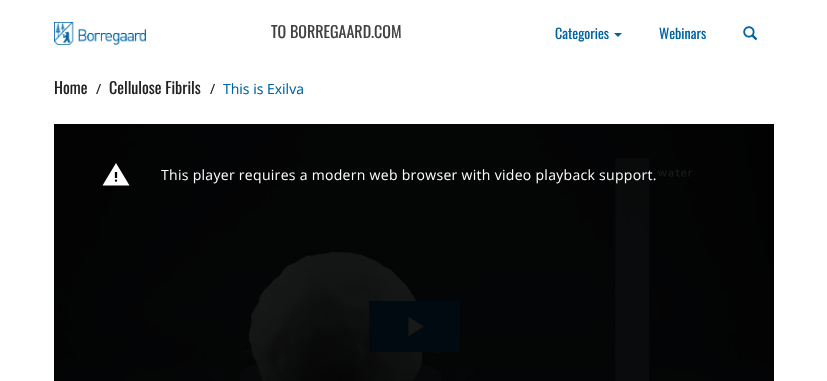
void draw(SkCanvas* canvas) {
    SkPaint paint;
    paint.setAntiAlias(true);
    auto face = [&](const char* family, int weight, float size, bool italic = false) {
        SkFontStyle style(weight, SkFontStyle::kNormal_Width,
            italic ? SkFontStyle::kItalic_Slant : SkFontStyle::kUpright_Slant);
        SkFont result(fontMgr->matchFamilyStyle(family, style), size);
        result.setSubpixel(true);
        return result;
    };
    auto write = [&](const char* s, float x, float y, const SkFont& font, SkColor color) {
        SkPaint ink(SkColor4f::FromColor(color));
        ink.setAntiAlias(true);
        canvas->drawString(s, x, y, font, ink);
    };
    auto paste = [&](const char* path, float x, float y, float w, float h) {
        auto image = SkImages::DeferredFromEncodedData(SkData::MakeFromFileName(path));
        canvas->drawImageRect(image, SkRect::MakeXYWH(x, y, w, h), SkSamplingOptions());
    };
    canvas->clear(SK_ColorWHITE);
    paste("pic1.png", 54, 22, 92, 23);
    auto kFont1 = face("Oswald", 400, 16);
    write("TO BORREGAARD.COM", 271, 38, kFont1, SkColorSetRGB(65, 65, 65));
    auto kFont2 = face("Oswald", 400, 14);
    write("Categories", 555, 39, kFont2, SkColorSetRGB(0, 100, 163));
    paint.setColor(SkColorSetRGB(0, 100, 163));
    canvas->drawPath(SkPathBuilder().moveTo(614, 33).lineTo(622, 33).lineTo(618, 37).close().detach(), paint);
    write("Webinars", 659, 39, kFont2, SkColorSetRGB(0, 100, 163));
    paste("pic2.png", 743, 26, 15, 15);
    write("Home", 54, 94, kFont1, SkColorSetRGB(34, 34, 34));
    auto kFont3 = face("Open Sans", 400, 14);
    write("/", 96, 94, kFont3, SkColorSetRGB(34, 34, 34));
    write("Cellulose Fibrils", 109, 94, kFont1, SkColorSetRGB(34, 34, 34));
    write("/", 210, 94, kFont3, SkColorSetRGB(34, 34, 34));
    write("This is Exilva", 223, 94, kFont3, SkColorSetRGB(0, 100, 163));
    paste("pic3.png", 54, 124, 720, 257);
}
